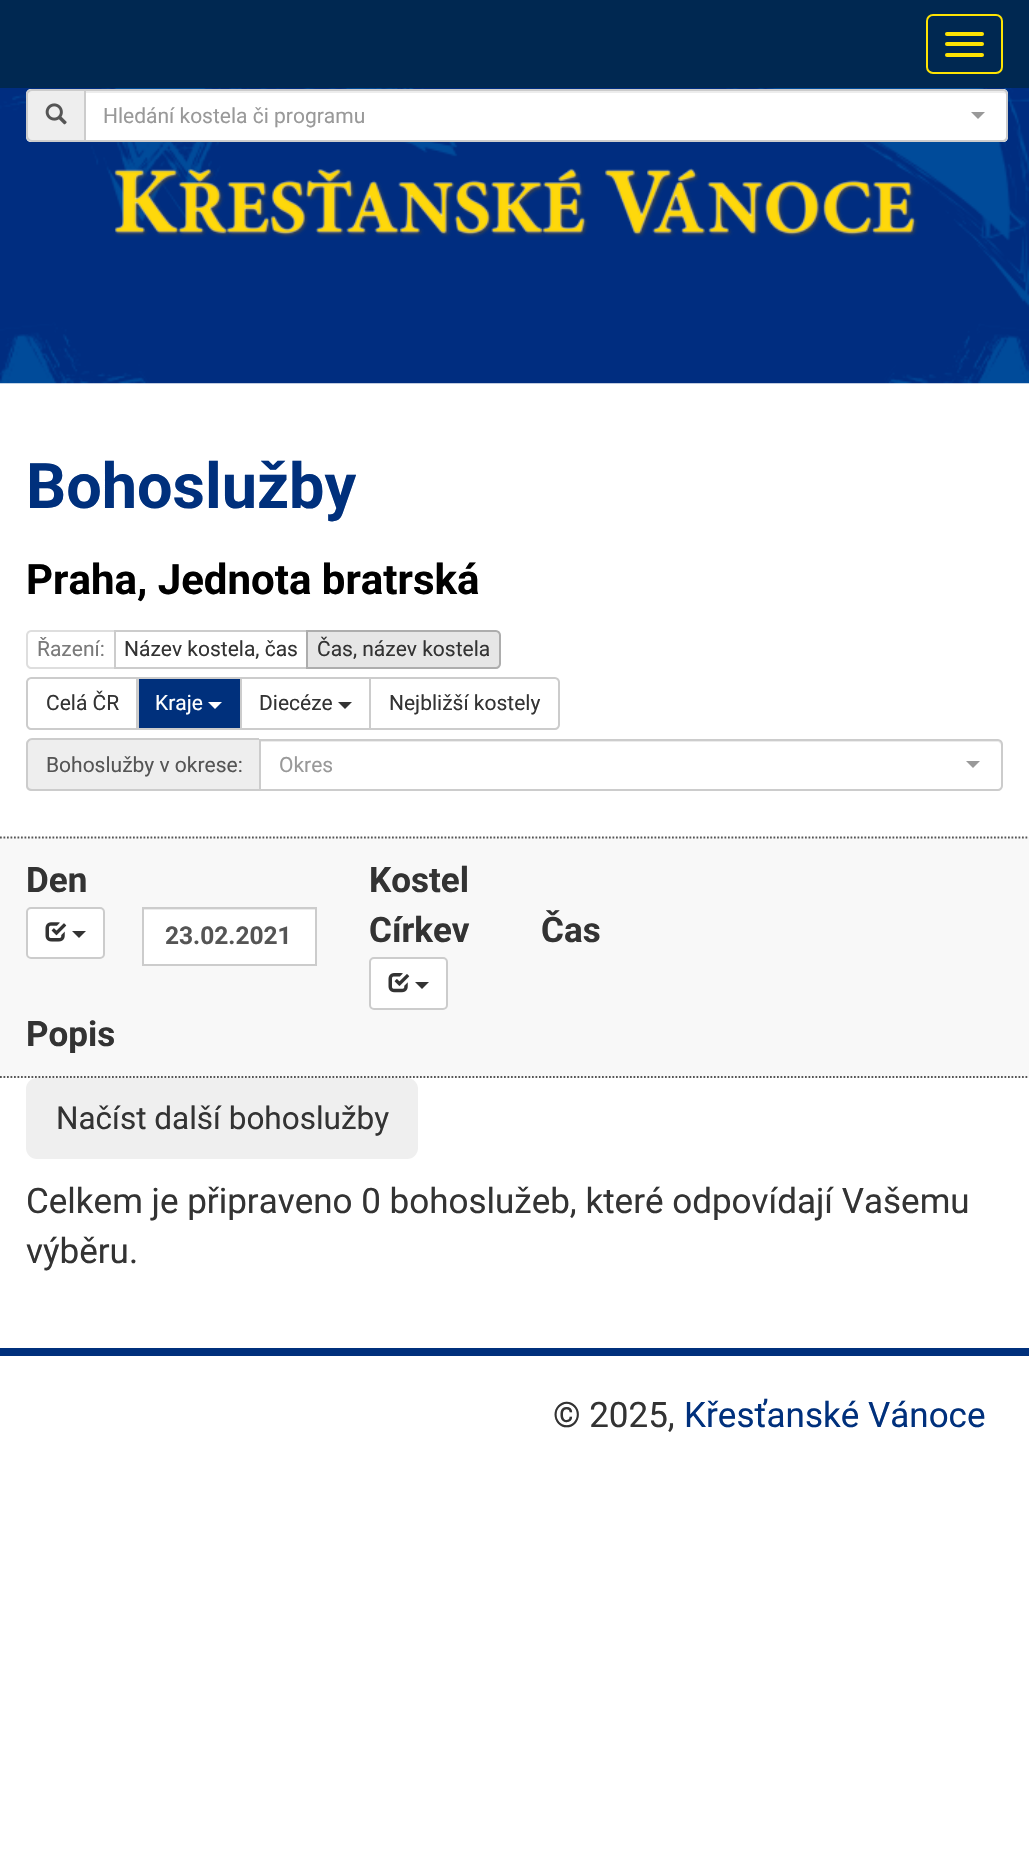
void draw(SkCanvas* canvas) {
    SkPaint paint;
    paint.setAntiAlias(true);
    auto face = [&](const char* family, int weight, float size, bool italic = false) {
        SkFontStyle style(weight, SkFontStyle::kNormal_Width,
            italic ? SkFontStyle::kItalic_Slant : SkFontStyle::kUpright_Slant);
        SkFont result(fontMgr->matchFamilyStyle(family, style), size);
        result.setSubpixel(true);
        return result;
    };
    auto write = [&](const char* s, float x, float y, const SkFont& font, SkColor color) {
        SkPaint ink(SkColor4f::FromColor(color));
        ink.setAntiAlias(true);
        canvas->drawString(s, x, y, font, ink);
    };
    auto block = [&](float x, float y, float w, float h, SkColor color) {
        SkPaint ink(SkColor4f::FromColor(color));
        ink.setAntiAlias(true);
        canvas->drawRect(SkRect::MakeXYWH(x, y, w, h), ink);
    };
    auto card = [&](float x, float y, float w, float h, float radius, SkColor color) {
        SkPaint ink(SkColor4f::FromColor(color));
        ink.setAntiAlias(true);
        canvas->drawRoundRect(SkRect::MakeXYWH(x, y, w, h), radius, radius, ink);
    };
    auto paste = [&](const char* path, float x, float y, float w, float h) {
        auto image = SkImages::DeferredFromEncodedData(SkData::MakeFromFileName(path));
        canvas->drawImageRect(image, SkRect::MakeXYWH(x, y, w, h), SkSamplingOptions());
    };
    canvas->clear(SK_ColorWHITE);
    block(0, 0, 1029, 88, SkColorSetRGB(0, 40, 81));
    paint.setStyle(SkPaint::kStroke_Style);
    paint.setStrokeWidth(2);
    paint.setColor(SkColorSetRGB(254, 227, 3));
    canvas->drawRoundRect(SkRect::MakeXYWH(927, 15, 75, 58), 6, 6, paint);
    card(945, 32, 39, 4, 2, SkColorSetRGB(254, 227, 3));
    card(945, 42, 39, 4, 2, SkColorSetRGB(254, 227, 3));
    card(945, 53, 39, 4, 2, SkColorSetRGB(254, 227, 3));
    paste("pic1.png", 0, 88, 1029, 296);
    paint.setStyle(SkPaint::kFill_Style);
    paint.setColor(SkColorSetRGB(238, 238, 238));
    canvas->drawPath(SkPathBuilder().moveTo(31, 89).lineTo(84, 89).lineTo(84, 142).lineTo(31, 142).cubicTo(28, 142, 26, 140, 26, 137).lineTo(26, 94).cubicTo(26, 91, 28, 89, 31, 89).close().detach(), paint);
    paint.setColor(SkColorSetRGB(204, 204, 204));
    canvas->drawPath(SkPathBuilder(SkPathFillType::kEvenOdd).moveTo(32, 89).lineTo(84, 89).lineTo(84, 142).lineTo(32, 142).cubicTo(29, 142, 26, 139, 26, 136).lineTo(26, 94).cubicTo(26, 92, 29, 89, 32, 89).close().moveTo(32, 91).lineTo(84, 91).lineTo(84, 140).lineTo(32, 140).cubicTo(30, 140, 28, 138, 28, 136).lineTo(28, 94).cubicTo(28, 93, 30, 91, 32, 91).close().detach(), paint);
    paste("pic2.png", 45, 103, 22, 22);
    paint.setColor(SK_ColorWHITE);
    canvas->drawPath(SkPathBuilder().moveTo(84, 89).lineTo(1003, 89).cubicTo(1006, 89, 1008, 91, 1008, 94).lineTo(1008, 137).cubicTo(1008, 140, 1006, 142, 1003, 142).lineTo(84, 142).close().detach(), paint);
    paint.setColor(SkColorSetRGB(236, 236, 236));
    canvas->drawPath(SkPathBuilder().moveTo(86, 93).lineTo(1003, 93).cubicTo(1005, 93, 1006, 94, 1006, 96).cubicTo(1006, 93, 1005, 91, 1002, 91).lineTo(86, 91).close().detach(), paint);
    paint.setStyle(SkPaint::kStroke_Style);
    paint.setColor(SkColorSetRGB(204, 204, 204));
    canvas->drawPath(SkPathBuilder().moveTo(85, 90).lineTo(1003, 90).cubicTo(1005, 90, 1007, 92, 1007, 94).lineTo(1007, 137).cubicTo(1007, 139, 1005, 141, 1003, 141).lineTo(85, 141).close().detach(), paint);
    auto kFont1 = face("Roboto", 400, 21);
    write("Hledání kostela či programu", 103, 123, kFont1, SkColorSetRGB(153, 153, 153));
    paint.setStyle(SkPaint::kFill_Style);
    paint.setColor(SkColorSetRGB(153, 153, 153));
    canvas->drawPath(SkPathBuilder().moveTo(971, 112).lineTo(985, 112).lineTo(978, 119).close().detach(), paint);
    paste("pic3.png", 114, 168, 804, 70);
    auto kFont2 = face("Roboto", 700, 63);
    write("Bohoslužby", 26, 508, kFont2, SkColorSetRGB(0, 48, 124));
    auto kFont3 = face("Roboto", 700, 42);
    write("Praha, Jednota bratrská", 26, 594, kFont3, SK_ColorBLACK);
    paint.setStyle(SkPaint::kStroke_Style);
    paint.setColor(SkColorSetRGB(222, 222, 222));
    canvas->drawPath(SkPathBuilder().moveTo(31, 631).lineTo(115, 631).lineTo(115, 668).lineTo(31, 668).cubicTo(29, 668, 27, 666, 27, 664).lineTo(27, 635).cubicTo(27, 633, 29, 631, 31, 631).close().detach(), paint);
    write("Řazení:", 37, 656, kFont1, SkColorSetRGB(122, 122, 122));
    paint.setColor(SkColorSetRGB(204, 204, 204));
    canvas->drawRect(SkRect::MakeXYWH(115, 631, 192, 37), paint);
    write("Název kostela, čas", 124, 656, kFont1, SkColorSetRGB(51, 51, 51));
    paint.setStyle(SkPaint::kFill_Style);
    paint.setColor(SkColorSetRGB(230, 230, 230));
    canvas->drawPath(SkPathBuilder().moveTo(307, 631).lineTo(496, 631).cubicTo(498, 631, 500, 633, 500, 635).lineTo(500, 664).cubicTo(500, 666, 498, 668, 496, 668).lineTo(307, 668).close().detach(), paint);
    paint.setStyle(SkPaint::kStroke_Style);
    paint.setColor(SkColorSetRGB(173, 173, 173));
    canvas->drawPath(SkPathBuilder().moveTo(307, 631).lineTo(496, 631).cubicTo(498, 631, 500, 633, 500, 635).lineTo(500, 664).cubicTo(500, 666, 498, 668, 496, 668).lineTo(307, 668).close().detach(), paint);
    write("Čas, název kostela", 317, 656, kFont1, SkColorSetRGB(51, 51, 51));
    paint.setColor(SkColorSetRGB(204, 204, 204));
    canvas->drawPath(SkPathBuilder().moveTo(31, 678).lineTo(137, 678).lineTo(137, 729).lineTo(31, 729).cubicTo(29, 729, 27, 727, 27, 725).lineTo(27, 682).cubicTo(27, 680, 29, 678, 31, 678).close().detach(), paint);
    write("Celá ČR", 46, 710, kFont1, SkColorSetRGB(51, 51, 51));
    paint.setStyle(SkPaint::kFill_Style);
    paint.setColor(SkColorSetRGB(0, 48, 124));
    canvas->drawRect(SkRect::MakeXYWH(138, 678, 103, 51), paint);
    paint.setStyle(SkPaint::kStroke_Style);
    paint.setColor(SkColorSetRGB(204, 204, 204));
    canvas->drawRect(SkRect::MakeXYWH(138, 678, 103, 51), paint);
    write("Kraje", 155, 710, kFont1, SK_ColorWHITE);
    paint.setStyle(SkPaint::kFill_Style);
    paint.setColor(SK_ColorWHITE);
    canvas->drawPath(SkPathBuilder().moveTo(208, 702).lineTo(222, 702).lineTo(215, 709).close().detach(), paint);
    paint.setStyle(SkPaint::kStroke_Style);
    paint.setColor(SkColorSetRGB(204, 204, 204));
    canvas->drawRect(SkRect::MakeXYWH(241, 678, 129, 51), paint);
    write("Diecéze", 259, 710, kFont1, SkColorSetRGB(51, 51, 51));
    paint.setStyle(SkPaint::kFill_Style);
    paint.setColor(SkColorSetRGB(51, 51, 51));
    canvas->drawPath(SkPathBuilder().moveTo(338, 702).lineTo(352, 702).lineTo(345, 709).close().detach(), paint);
    paint.setColor(SK_ColorWHITE);
    canvas->drawPath(SkPathBuilder().moveTo(370, 678).lineTo(555, 678).cubicTo(557, 678, 559, 680, 559, 682).lineTo(559, 725).cubicTo(559, 727, 557, 729, 555, 729).lineTo(370, 729).close().detach(), paint);
    paint.setStyle(SkPaint::kStroke_Style);
    paint.setColor(SkColorSetRGB(204, 204, 204));
    canvas->drawPath(SkPathBuilder().moveTo(370, 678).lineTo(555, 678).cubicTo(557, 678, 559, 680, 559, 682).lineTo(559, 725).cubicTo(559, 727, 557, 729, 555, 729).lineTo(370, 729).close().detach(), paint);
    write("Nejbližší kostely", 389, 710, kFont1, SkColorSetRGB(51, 51, 51));
    paint.setStyle(SkPaint::kFill_Style);
    paint.setColor(SkColorSetRGB(238, 238, 238));
    canvas->drawPath(SkPathBuilder().moveTo(31, 739).lineTo(259, 739).lineTo(259, 791).lineTo(31, 791).cubicTo(28, 791, 26, 789, 26, 786).lineTo(26, 744).cubicTo(26, 741, 28, 739, 31, 739).close().detach(), paint);
    paint.setColor(SkColorSetRGB(204, 204, 204));
    canvas->drawPath(SkPathBuilder(SkPathFillType::kEvenOdd).moveTo(32, 738).lineTo(259, 738).lineTo(259, 791).lineTo(32, 791).cubicTo(29, 791, 26, 789, 26, 786).lineTo(26, 744).cubicTo(26, 741, 29, 738, 32, 738).close().moveTo(32, 740).lineTo(259, 740).lineTo(259, 789).lineTo(32, 789).cubicTo(30, 789, 28, 788, 28, 786).lineTo(28, 744).cubicTo(28, 742, 30, 740, 32, 740).close().detach(), paint);
    write("Bohoslužby v okrese:", 46, 772, kFont1, SkColorSetRGB(85, 85, 85));
    paint.setColor(SkColorSetRGB(236, 236, 236));
    canvas->drawPath(SkPathBuilder().moveTo(261, 742).lineTo(998, 742).cubicTo(999, 742, 1001, 744, 1001, 746).cubicTo(1001, 743, 1001, 740, 997, 740).lineTo(261, 740).close().detach(), paint);
    paint.setStyle(SkPaint::kStroke_Style);
    paint.setColor(SkColorSetRGB(204, 204, 204));
    canvas->drawPath(SkPathBuilder().moveTo(260, 740).lineTo(998, 740).cubicTo(1000, 740, 1002, 742, 1002, 744).lineTo(1002, 786).cubicTo(1002, 788, 1000, 790, 998, 790).lineTo(260, 790).close().detach(), paint);
    write("Okres", 279, 772, kFont1, SkColorSetRGB(153, 153, 153));
    paint.setStyle(SkPaint::kFill_Style);
    paint.setColor(SkColorSetRGB(153, 153, 153));
    canvas->drawPath(SkPathBuilder().moveTo(966, 761).lineTo(980, 761).lineTo(973, 768).close().detach(), paint);
    block(0, 837, 1029, 241, SkColorSetRGB(248, 248, 248));
    paint.setStyle(SkPaint::kStroke_Style);
    paint.setStrokeWidth(1.8f);
    paint.setColor(SkColorSetRGB(85, 85, 85));
    paint.setPathEffect(SkDashPathEffect::Make({{1.75f, 1.75f}}, 0));
    canvas->drawPath(SkPathBuilder().moveTo(0, 837.5f).lineTo(1029, 837.5f).detach(), paint);
    paint.setPathEffect(nullptr);
    paint.setPathEffect(SkDashPathEffect::Make({{1.75f, 1.75f}}, 0));
    canvas->drawPath(SkPathBuilder().moveTo(0, 1077).lineTo(1029, 1077).detach(), paint);
    paint.setPathEffect(nullptr);
    auto kFont4 = face("Roboto", 700, 35);
    write("Den", 26, 892, kFont4, SkColorSetRGB(51, 51, 51));
    paint.setStyle(SkPaint::kFill_Style);
    paint.setColor(SK_ColorWHITE);
    canvas->drawRoundRect(SkRect::MakeXYWH(27, 908, 77, 50), 4, 4, paint);
    paint.setStyle(SkPaint::kStroke_Style);
    paint.setStrokeWidth(2);
    paint.setColor(SkColorSetRGB(204, 204, 204));
    canvas->drawRoundRect(SkRect::MakeXYWH(27, 908, 77, 50), 4, 4, paint);
    paste("pic4.png", 45, 922, 22, 20);
    paint.setStyle(SkPaint::kFill_Style);
    paint.setColor(SkColorSetRGB(51, 51, 51));
    canvas->drawPath(SkPathBuilder().moveTo(72, 931).lineTo(86, 931).lineTo(79, 938).close().detach(), paint);
    block(144, 910, 171, 54, SK_ColorWHITE);
    block(144, 909, 171, 1, SkColorSetRGB(236, 236, 236));
    paint.setStyle(SkPaint::kStroke_Style);
    paint.setColor(SkColorSetRGB(204, 204, 204));
    canvas->drawRect(SkRect::MakeXYWH(143, 908, 173, 57), paint);
    auto kFont5 = face("Roboto", 700, 24.5f);
    write("23.02.2021", 165, 944, kFont5, SkColorSetRGB(85, 85, 85));
    write("Kostel", 369, 892, kFont4, SkColorSetRGB(51, 51, 51));
    write("Čas", 541, 942, kFont4, SkColorSetRGB(51, 51, 51));
    write("Církev", 369, 942, kFont4, SkColorSetRGB(51, 51, 51));
    paint.setStyle(SkPaint::kFill_Style);
    paint.setColor(SK_ColorWHITE);
    canvas->drawRoundRect(SkRect::MakeXYWH(370, 958, 77, 51), 4, 4, paint);
    paint.setStyle(SkPaint::kStroke_Style);
    paint.setColor(SkColorSetRGB(204, 204, 204));
    canvas->drawRoundRect(SkRect::MakeXYWH(370, 958, 77, 51), 4, 4, paint);
    paste("pic5.png", 388, 973, 22, 20);
    paint.setStyle(SkPaint::kFill_Style);
    paint.setColor(SkColorSetRGB(51, 51, 51));
    canvas->drawPath(SkPathBuilder().moveTo(415, 982).lineTo(429, 982).lineTo(422, 989).close().detach(), paint);
    write("Popis", 26, 1046, kFont4, SkColorSetRGB(51, 51, 51));
    card(26, 1078, 392, 81, 11, SkColorSetRGB(239, 239, 239));
    auto kFont6 = face("Roboto", 400, 31.5f);
    write("Načíst další bohoslužby", 56, 1129, kFont6, SkColorSetRGB(51, 51, 51));
    auto kFont7 = face("Roboto", 400, 35);
    write("Celkem je připraveno 0 bohoslužeb, které odpovídají Vašemu", 26, 1213, kFont7, SkColorSetRGB(51, 51, 51));
    write("výběru.", 26, 1263, kFont7, SkColorSetRGB(51, 51, 51));
    block(0, 1348, 1029, 8, SkColorSetRGB(0, 48, 124));
    write("© 2025,", 553, 1427, kFont7, SkColorSetRGB(51, 51, 51));
    write("Křesťanské Vánoce", 684, 1427, kFont7, SkColorSetRGB(0, 48, 124));
}
